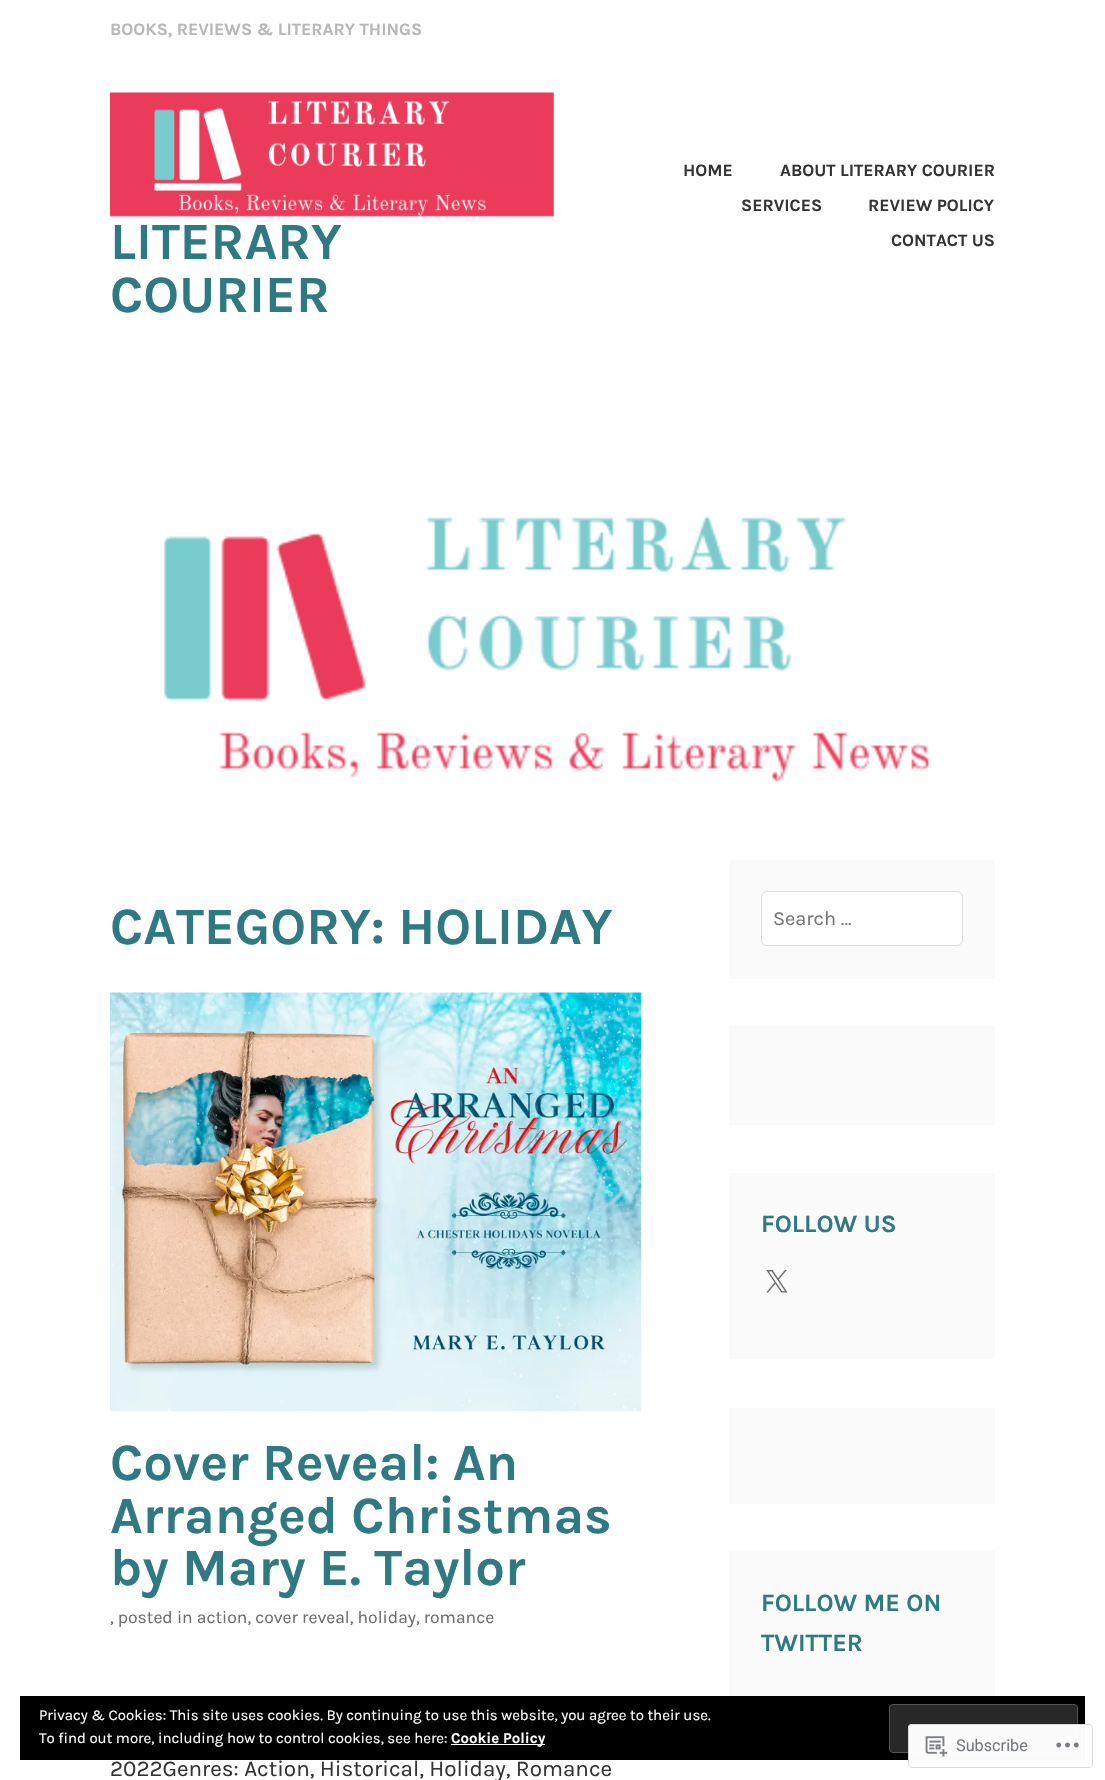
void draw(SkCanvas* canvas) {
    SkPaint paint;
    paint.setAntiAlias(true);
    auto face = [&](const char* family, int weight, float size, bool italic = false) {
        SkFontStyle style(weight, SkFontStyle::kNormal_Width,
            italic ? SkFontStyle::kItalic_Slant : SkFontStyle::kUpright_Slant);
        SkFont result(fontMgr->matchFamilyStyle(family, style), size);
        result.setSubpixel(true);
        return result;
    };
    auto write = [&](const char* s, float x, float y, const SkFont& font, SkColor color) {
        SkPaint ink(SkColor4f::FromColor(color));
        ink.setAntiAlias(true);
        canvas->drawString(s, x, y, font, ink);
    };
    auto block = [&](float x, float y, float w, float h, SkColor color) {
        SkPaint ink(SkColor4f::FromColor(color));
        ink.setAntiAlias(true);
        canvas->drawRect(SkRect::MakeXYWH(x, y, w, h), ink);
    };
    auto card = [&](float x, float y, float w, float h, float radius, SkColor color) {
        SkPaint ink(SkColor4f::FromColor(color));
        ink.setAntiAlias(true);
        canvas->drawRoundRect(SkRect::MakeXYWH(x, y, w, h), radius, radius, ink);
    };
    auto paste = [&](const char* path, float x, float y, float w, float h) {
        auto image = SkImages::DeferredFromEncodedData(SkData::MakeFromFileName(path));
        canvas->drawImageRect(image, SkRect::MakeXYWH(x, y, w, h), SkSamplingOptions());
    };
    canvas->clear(SK_ColorWHITE);
    auto kFont1 = face("Karla", 700, 17.5f);
    write("BOOKS, REVIEWS & LITERARY THINGS", 110, 35, kFont1, SkColorSetRGB(183, 183, 183));
    write("HOME", 683, 176, kFont1, SkColorSetRGB(51, 51, 51));
    write("ABOUT LITERARY COURIER", 780, 176, kFont1, SkColorSetRGB(51, 51, 51));
    write("SERVICES", 741, 211, kFont1, SkColorSetRGB(51, 51, 51));
    write("REVIEW POLICY", 868, 211, kFont1, SkColorSetRGB(51, 51, 51));
    write("CONTACT US", 891, 246, kFont1, SkColorSetRGB(51, 51, 51));
    paste("pic1.png", 110, 92, 444, 125);
    auto kFont2 = face("Karla", 700, 52.5f);
    write("LITERARY", 110, 259, kFont2, SkColorSetRGB(47, 121, 131));
    write("COURIER", 110, 312, kFont2, SkColorSetRGB(47, 121, 131));
    paste("pic2.png", 163, 515, 768, 267);
    write("CATEGORY: HOLIDAY", 110, 944, kFont2, SkColorSetRGB(47, 121, 131));
    paste("pic3.png", 110, 992, 532, 420);
    write("Cover Reveal: An", 110, 1480, kFont2, SkColorSetRGB(47, 121, 131));
    write("Arranged Christmas", 110, 1533, kFont2, SkColorSetRGB(47, 121, 131));
    write("by Mary E. Taylor", 110, 1585, kFont2, SkColorSetRGB(47, 121, 131));
    auto kFont3 = face("Karla", 400, 17.5f);
    write(", posted in action, cover reveal, holiday, romance", 110, 1623, kFont3, SkColorSetRGB(109, 109, 109));
    auto kFont4 = face("Karla", 400, 22.5f);
    write("2022Genres: Action, Historical, Holiday, Romance", 110, 1776, kFont4, SkColorSetRGB(51, 51, 51));
    block(729, 860, 266, 119, SkColorSetRGB(250, 250, 250));
    paint.setColor(SK_ColorWHITE);
    canvas->drawRoundRect(SkRect::MakeXYWH(761.5f, 891.5f, 201, 54), 5.5f, 5.5f, paint);
    paint.setStyle(SkPaint::kStroke_Style);
    paint.setStrokeWidth(1);
    paint.setColor(SkColorSetRGB(221, 221, 221));
    canvas->drawRoundRect(SkRect::MakeXYWH(761.5f, 891.5f, 201, 54), 5.5f, 5.5f, paint);
    auto kFont5 = face("Karla", 400, 20);
    write("Search …", 773, 925, kFont5, SkColorSetRGB(117, 117, 117));
    block(729, 1026, 266, 99, SkColorSetRGB(250, 250, 250));
    block(729, 1173, 266, 186, SkColorSetRGB(250, 250, 250));
    auto kFont6 = face("Karla", 700, 25);
    write("FOLLOW US", 761, 1232, kFont6, SkColorSetRGB(47, 121, 131));
    paste("pic4.png", 766, 1270, 22, 23);
    block(729, 1408, 266, 96, SkColorSetRGB(250, 250, 250));
    block(729, 1551, 266, 145, SkColorSetRGB(250, 250, 250));
    write("FOLLOW ME ON", 761, 1611, kFont6, SkColorSetRGB(47, 121, 131));
    write("TWITTER", 761, 1651, kFont6, SkColorSetRGB(47, 121, 131));
    block(20, 1696, 1065, 64, SK_ColorBLACK);
    auto kFont7 = face("Karla", 400, 15);
    write("Privacy & Cookies: This site uses cookies. By continuing to use this website, you agree to their use.", 39, 1720, kFont7, SK_ColorWHITE);
    paint.setStyle(SkPaint::kFill_Style);
    paint.setColor(SkColorSetRGB(40, 40, 40));
    canvas->drawRoundRect(SkRect::MakeXYWH(889.5f, 1704.5f, 188, 48), 3.5f, 3.5f, paint);
    paint.setStyle(SkPaint::kStroke_Style);
    paint.setColor(SkColorSetRGB(83, 83, 83));
    canvas->drawRoundRect(SkRect::MakeXYWH(889.5f, 1704.5f, 188, 48), 3.5f, 3.5f, paint);
    write("To find out more, including how to control cookies, see here:", 39, 1743, kFont7, SK_ColorWHITE);
    block(451, 1744, 94, 1, SK_ColorWHITE);
    auto kFont8 = face("Karla", 700, 15);
    write("Cookie Policy", 451, 1743, kFont8, SK_ColorWHITE);
    card(908, 1724, 185, 44, 4, SkColorSetARGB(250, 255, 255, 255));
    paint.setColor(SkColorSetARGB(250, 220, 220, 222));
    canvas->drawRoundRect(SkRect::MakeXYWH(908.5f, 1724.5f, 184, 43), 3.5f, 3.5f, paint);
    paste("pic5.png", 925, 1736, 23, 21);
    auto kFont9 = face("Roboto", 400, 16.25f);
    write("Subscribe", 956, 1751, kFont9, SkColorSetRGB(118, 122, 128));
    paste("pic6.png", 1056, 1742, 23, 6);
}
